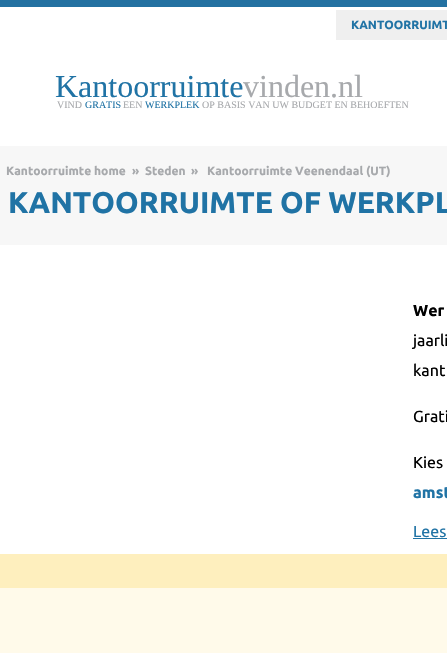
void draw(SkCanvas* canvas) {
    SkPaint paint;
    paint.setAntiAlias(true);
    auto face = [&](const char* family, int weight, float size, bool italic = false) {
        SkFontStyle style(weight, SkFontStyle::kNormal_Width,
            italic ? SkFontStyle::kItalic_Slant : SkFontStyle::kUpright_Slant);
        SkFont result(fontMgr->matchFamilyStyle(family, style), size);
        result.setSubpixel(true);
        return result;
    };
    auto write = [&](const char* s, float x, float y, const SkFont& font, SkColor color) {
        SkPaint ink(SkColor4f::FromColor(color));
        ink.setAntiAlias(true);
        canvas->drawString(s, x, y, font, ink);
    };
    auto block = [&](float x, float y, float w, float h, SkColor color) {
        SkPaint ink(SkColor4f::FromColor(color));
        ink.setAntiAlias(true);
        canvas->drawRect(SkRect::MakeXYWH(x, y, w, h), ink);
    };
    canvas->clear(SK_ColorWHITE);
    block(0, 0, 447, 7, SkColorSetRGB(35, 113, 161));
    block(336, 10, 111, 30, SkColorSetRGB(239, 239, 239));
    auto kFont1 = face("Ubuntu", 700, 12);
    write("KANTOORRUIMT", 351, 29, kFont1, SkColorSetRGB(32, 115, 165));
    auto kFont2 = face("Liberation Serif", 400, 32);
    write("Kantoorruimte", 55, 97, kFont2, SkColorSetRGB(32, 115, 165));
    write("vinden.nl", 243, 97, kFont2, SkColorSetRGB(167, 169, 172));
    auto kFont3 = face("Liberation Serif", 400, 10);
    write("VIND", 57, 108, kFont3, SkColorSetRGB(167, 169, 172));
    write("GRATIS", 85, 108, kFont3, SkColorSetRGB(32, 115, 165));
    write("EEN", 123, 108, kFont3, SkColorSetRGB(167, 169, 172));
    write("WERKPLEK", 145, 108, kFont3, SkColorSetRGB(32, 115, 165));
    write("OP BASIS VAN UW BUDGET EN BEHOEFTEN", 202, 108, kFont3, SkColorSetRGB(167, 169, 172));
    block(0, 146, 447, 99, SkColorSetRGB(247, 247, 247));
    write("Kantoorruimte home", 6, 175, kFont1, SkColorSetRGB(167, 169, 172));
    write("»", 132, 175, kFont1, SkColorSetRGB(167, 169, 172));
    write("Steden", 145, 175, kFont1, SkColorSetRGB(167, 169, 172));
    write("»", 191, 175, kFont1, SkColorSetRGB(167, 169, 172));
    write("Kantoorruimte Veenendaal (UT)", 207, 175, kFont1, SkColorSetRGB(167, 169, 172));
    auto kFont4 = face("Ubuntu", 700, 30);
    write("KANTOORRUIMTE OF WERKPL", 8, 213, kFont4, SkColorSetRGB(32, 115, 165));
    auto kFont5 = face("Ubuntu", 700, 16);
    write("Wer", 413, 316, kFont5, SK_ColorBLACK);
    auto kFont6 = face("Ubuntu", 400, 16);
    write("jaarli", 413, 346, kFont6, SK_ColorBLACK);
    write("kant", 413, 376, kFont6, SK_ColorBLACK);
    write("Grati", 413, 422, kFont6, SK_ColorBLACK);
    write("Kies", 413, 468, kFont6, SK_ColorBLACK);
    write("amst", 413, 498, kFont5, SkColorSetRGB(32, 115, 165));
    write("Lees", 413, 537, kFont6, SkColorSetRGB(32, 115, 165));
    block(413, 538, 34, 1, SkColorSetRGB(32, 115, 165));
    block(0, 554, 447, 34, SkColorSetRGB(254, 239, 190));
    block(0, 588, 447, 65, SkColorSetRGB(255, 250, 234));
}
